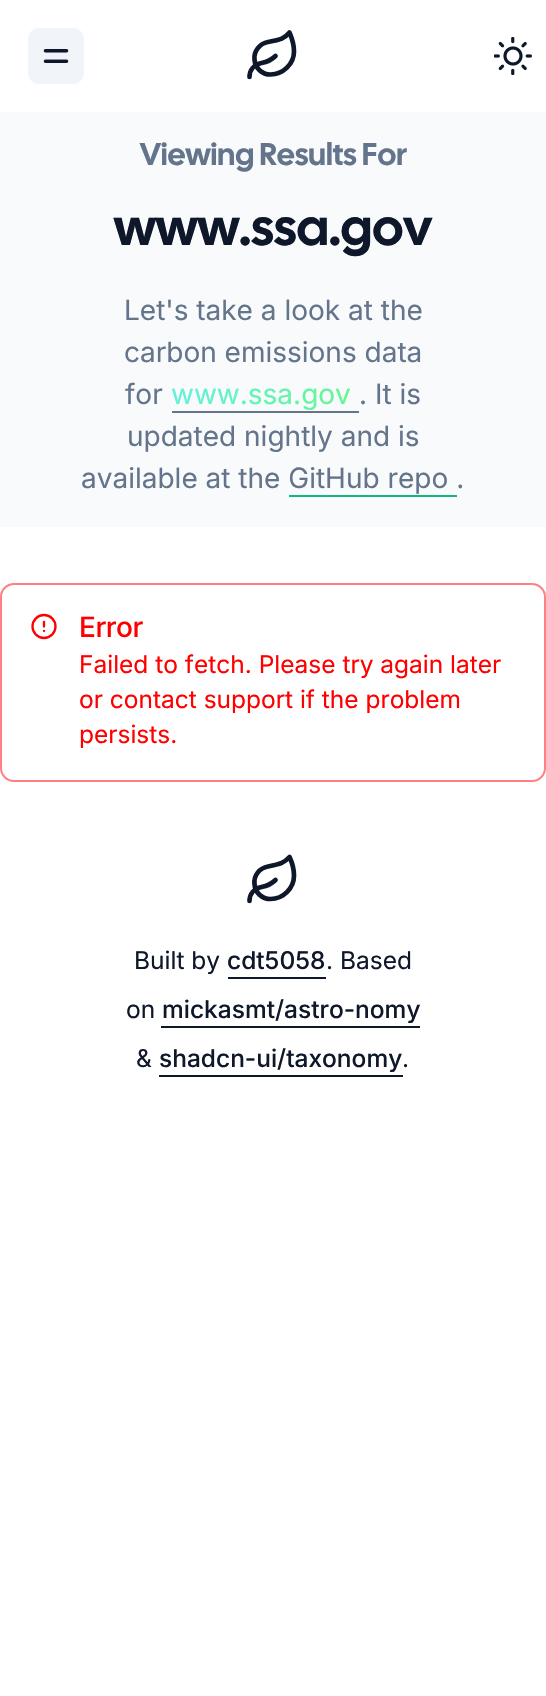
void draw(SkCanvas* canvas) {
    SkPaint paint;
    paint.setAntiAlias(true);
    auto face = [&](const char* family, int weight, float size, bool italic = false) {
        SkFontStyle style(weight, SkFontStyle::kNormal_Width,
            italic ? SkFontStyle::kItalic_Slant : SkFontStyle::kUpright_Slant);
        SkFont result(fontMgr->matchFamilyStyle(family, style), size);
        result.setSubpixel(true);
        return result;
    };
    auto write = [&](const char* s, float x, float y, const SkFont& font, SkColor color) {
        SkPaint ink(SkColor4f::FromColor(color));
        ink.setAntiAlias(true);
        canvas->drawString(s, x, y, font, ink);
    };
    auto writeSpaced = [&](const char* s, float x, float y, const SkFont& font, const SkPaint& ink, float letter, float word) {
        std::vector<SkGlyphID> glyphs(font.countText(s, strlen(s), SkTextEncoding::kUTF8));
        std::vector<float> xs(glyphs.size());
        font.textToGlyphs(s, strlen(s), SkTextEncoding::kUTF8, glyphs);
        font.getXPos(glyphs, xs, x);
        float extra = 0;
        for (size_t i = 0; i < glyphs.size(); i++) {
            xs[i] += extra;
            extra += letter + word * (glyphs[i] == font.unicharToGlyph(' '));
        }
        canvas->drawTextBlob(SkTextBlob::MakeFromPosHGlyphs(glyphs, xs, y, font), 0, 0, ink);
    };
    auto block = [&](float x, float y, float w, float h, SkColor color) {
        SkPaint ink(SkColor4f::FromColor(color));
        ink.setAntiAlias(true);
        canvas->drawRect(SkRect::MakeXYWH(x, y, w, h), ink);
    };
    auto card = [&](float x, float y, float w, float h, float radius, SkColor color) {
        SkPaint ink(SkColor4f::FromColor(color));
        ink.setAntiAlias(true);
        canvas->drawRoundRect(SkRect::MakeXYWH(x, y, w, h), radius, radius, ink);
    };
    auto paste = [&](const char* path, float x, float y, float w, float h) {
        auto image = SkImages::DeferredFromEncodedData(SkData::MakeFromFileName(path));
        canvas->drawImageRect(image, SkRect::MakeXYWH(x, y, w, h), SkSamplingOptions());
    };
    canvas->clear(SK_ColorWHITE);
    card(28, 28, 56, 56, 11, SkColorSetRGB(241, 245, 249));
    paste("pic1.png", 43, 49, 26, 14);
    paint.setStyle(SkPaint::kStroke_Style);
    paint.setStrokeWidth(4.7f);
    paint.setStrokeCap(SkPaint::kRound_Cap);
    paint.setStrokeJoin(SkPaint::kRound_Join);
    paint.setColor(SkColorSetRGB(15, 23, 42));
    canvas->drawPath(SkPathBuilder().moveTo(270.5f, 74.5f).cubicTo(262, 74.5f, 255, 68, 254.5f, 59.5f).cubicTo(253.5f, 51.5f, 259.5f, 43.5f, 268, 42).cubicTo(281, 39.5f, 284.5f, 38.5f, 289.5f, 32.5f).cubicTo(291.5f, 37.5f, 294, 42.5f, 294, 51.5f).cubicTo(294, 64, 283, 74.5f, 270.5f, 74.5f).close().moveTo(249.5f, 77).cubicTo(249.5f, 70, 254, 64.5f, 261.5f, 63).cubicTo(267, 62, 273, 58.5f, 275.5f, 56).detach(), paint);
    paste("pic2.png", 494, 37, 38, 38);
    block(0, 112, 546, 415, SkColorSetRGB(248, 250, 252));
    auto kFont1 = face("Cal Sans", 600, 31.5f);
    write("Viewing Results For", 140, 165, kFont1, SkColorSetRGB(100, 116, 139));
    auto kFont2 = face("Cal Sans", 600, 52.5f);
    write("www.ssa.gov", 114, 245, kFont2, SkColorSetRGB(15, 23, 42));
    auto kFont3 = face("Inter", 400, 28);
    write("Let's take a look at the", 124, 320, kFont3, SkColorSetRGB(100, 116, 139));
    write("carbon emissions data", 124, 362, kFont3, SkColorSetRGB(100, 116, 139));
    write("for", 125, 404, kFont3, SkColorSetRGB(100, 116, 139));
    paint.setStyle(SkPaint::kFill_Style);
    {
        const SkColor colors[] = {SkColorSetRGB(99, 241, 222), SkColorSetRGB(101, 247, 140)};
        const float stops[] = {0, 1};
        const SkPoint ends[] = {{171, 393}, {359, 393}};
        paint.setShader(SkGradientShader::MakeLinear(ends, colors, stops, 2, SkTileMode::kClamp));
        paint.setAlpha(255);
    }
    canvas->drawString("www.ssa.gov", 171, 404, kFont3, paint);
    block(172, 411, 187, 2, SkColorSetRGB(100, 116, 139));
    write(". It is", 359, 404, kFont3, SkColorSetRGB(100, 116, 139));
    write("updated nightly and is", 127, 446, kFont3, SkColorSetRGB(100, 116, 139));
    write("available at the GitHub repo .", 81, 488, kFont3, SkColorSetRGB(100, 116, 139));
    block(289, 495, 168, 2, SkColorSetRGB(16, 185, 129));
    paint.setStyle(SkPaint::kStroke_Style);
    paint.setStrokeWidth(2);
    paint.setStrokeCap(SkPaint::kButt_Cap);
    paint.setStrokeJoin(SkPaint::kMiter_Join);
    paint.setShader(nullptr);
    paint.setColor(SkColorSetRGB(255, 128, 128));
    canvas->drawRoundRect(SkRect::MakeXYWH(1, 584, 544, 197), 13, 13, paint);
    paint.setStrokeWidth(2.3f);
    paint.setColor(SkColorSetRGB(255, 0, 0));
    canvas->drawCircle(44, 626.5f, 11.5f, paint);
    paint.setStrokeCap(SkPaint::kRound_Cap);
    paint.setStrokeJoin(SkPaint::kRound_Join);
    canvas->drawPath(SkPathBuilder().moveTo(44, 622).lineTo(44, 626.5f).moveTo(44, 631).lineTo(44, 631).detach(), paint);
    auto kFont4 = face("Inter", 500, 28);
    paint.setStyle(SkPaint::kFill_Style);
    writeSpaced("Error", 79, 637, kFont4, paint, -0.5f, 0);
    auto kFont5 = face("Inter", 400, 24.5f);
    write("Failed to fetch. Please try again later", 79, 673, kFont5, SkColorSetRGB(255, 0, 0));
    write("or contact support if the problem", 79, 708, kFont5, SkColorSetRGB(255, 0, 0));
    write("persists.", 79, 743, kFont5, SkColorSetRGB(255, 0, 0));
    paint.setStyle(SkPaint::kStroke_Style);
    paint.setStrokeWidth(4.7f);
    paint.setColor(SkColorSetRGB(15, 23, 42));
    canvas->drawPath(SkPathBuilder().moveTo(270.5f, 899).cubicTo(262, 899, 255, 892.5f, 254.5f, 884).cubicTo(253.5f, 875.5f, 259.5f, 868, 268, 866.5f).cubicTo(281, 864, 284.5f, 862.5f, 289.5f, 857).cubicTo(291.5f, 861.5f, 294, 866.5f, 294, 875.5f).cubicTo(294, 888.5f, 283, 899, 270.5f, 899).close().moveTo(249.5f, 901).cubicTo(249.5f, 894, 254, 888.5f, 261.5f, 887).cubicTo(267, 886, 273, 882.5f, 275.5f, 880).detach(), paint);
    write("Built by", 134, 969, kFont5, SkColorSetRGB(15, 23, 42));
    auto kFont6 = face("Inter", 500, 24.5f);
    write("cdt5058", 227, 969, kFont6, SkColorSetRGB(15, 23, 42));
    block(228, 977, 98, 2, SkColorSetRGB(15, 23, 42));
    write(". Based", 326, 969, kFont5, SkColorSetRGB(15, 23, 42));
    write("on", 126, 1018, kFont5, SkColorSetRGB(15, 23, 42));
    write("mickasmt/astro-nomy", 162, 1018, kFont6, SkColorSetRGB(15, 23, 42));
    block(161, 1026, 259, 2, SkColorSetRGB(15, 23, 42));
    write("&", 136, 1067, kFont5, SkColorSetRGB(15, 23, 42));
    write("shadcn-ui/taxonomy", 159, 1067, kFont6, SkColorSetRGB(15, 23, 42));
    block(159, 1075, 244, 2, SkColorSetRGB(15, 23, 42));
    write(".", 402, 1067, kFont5, SkColorSetRGB(15, 23, 42));
}
